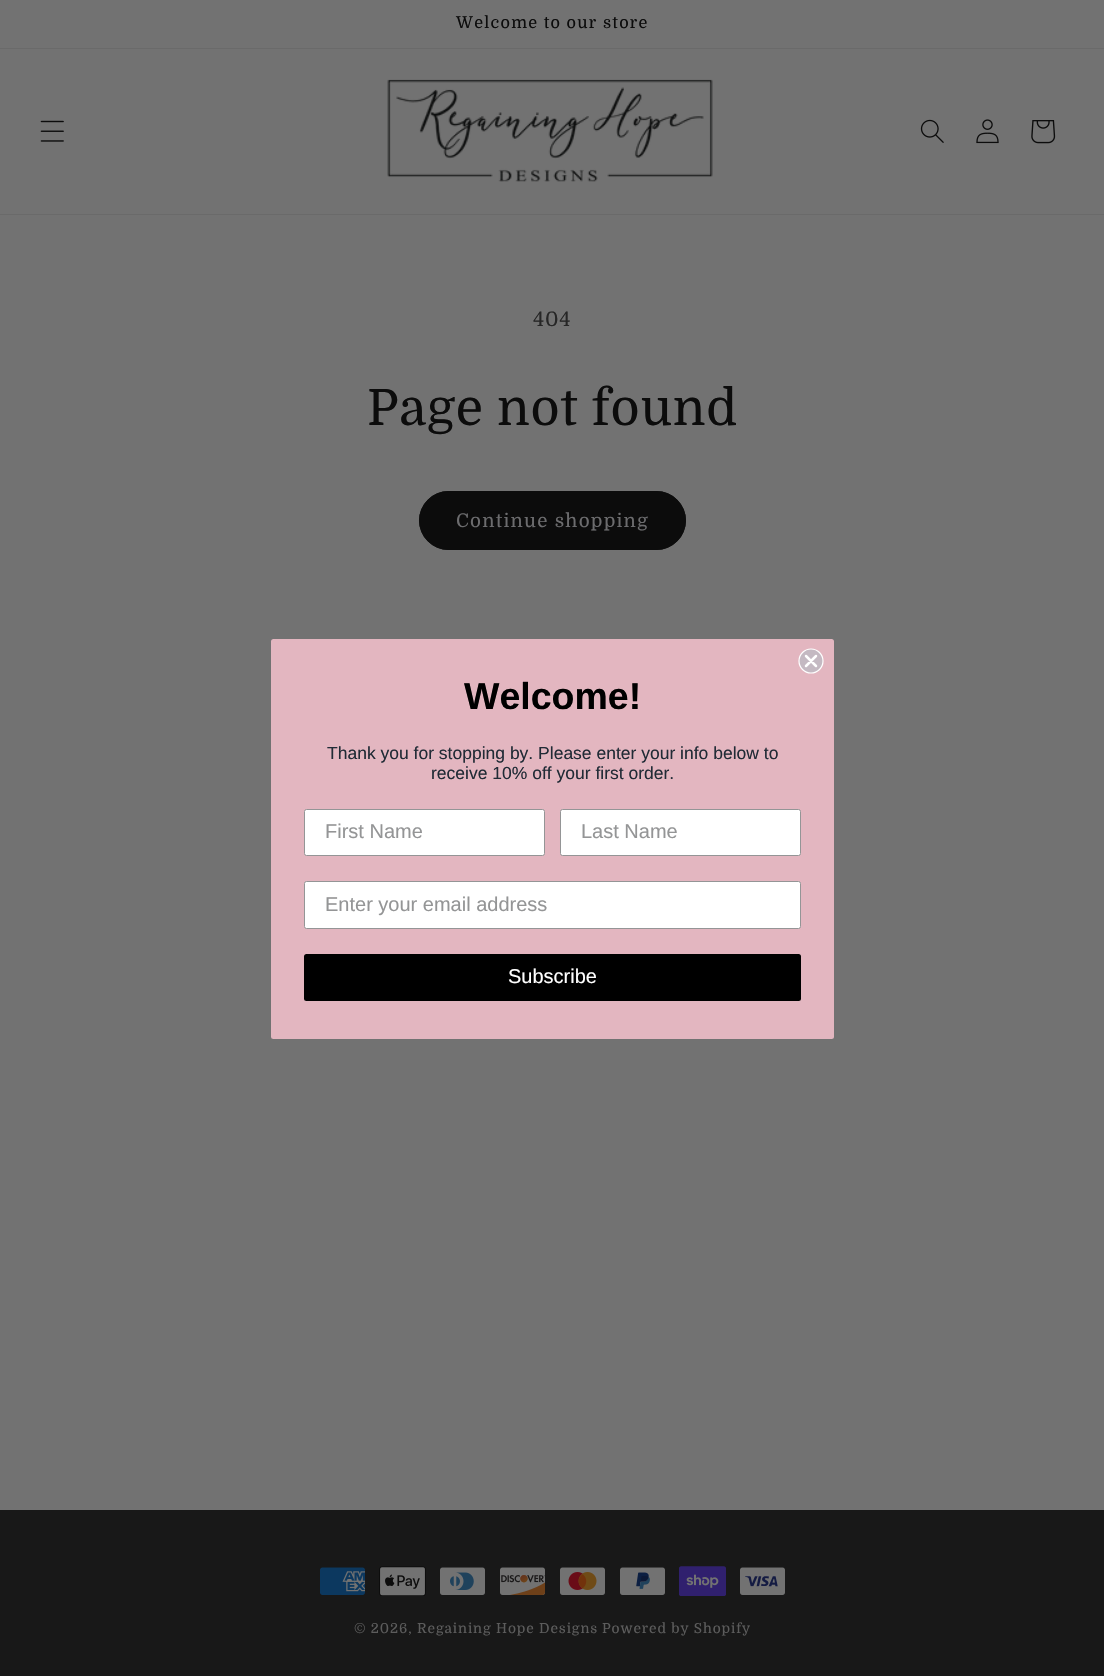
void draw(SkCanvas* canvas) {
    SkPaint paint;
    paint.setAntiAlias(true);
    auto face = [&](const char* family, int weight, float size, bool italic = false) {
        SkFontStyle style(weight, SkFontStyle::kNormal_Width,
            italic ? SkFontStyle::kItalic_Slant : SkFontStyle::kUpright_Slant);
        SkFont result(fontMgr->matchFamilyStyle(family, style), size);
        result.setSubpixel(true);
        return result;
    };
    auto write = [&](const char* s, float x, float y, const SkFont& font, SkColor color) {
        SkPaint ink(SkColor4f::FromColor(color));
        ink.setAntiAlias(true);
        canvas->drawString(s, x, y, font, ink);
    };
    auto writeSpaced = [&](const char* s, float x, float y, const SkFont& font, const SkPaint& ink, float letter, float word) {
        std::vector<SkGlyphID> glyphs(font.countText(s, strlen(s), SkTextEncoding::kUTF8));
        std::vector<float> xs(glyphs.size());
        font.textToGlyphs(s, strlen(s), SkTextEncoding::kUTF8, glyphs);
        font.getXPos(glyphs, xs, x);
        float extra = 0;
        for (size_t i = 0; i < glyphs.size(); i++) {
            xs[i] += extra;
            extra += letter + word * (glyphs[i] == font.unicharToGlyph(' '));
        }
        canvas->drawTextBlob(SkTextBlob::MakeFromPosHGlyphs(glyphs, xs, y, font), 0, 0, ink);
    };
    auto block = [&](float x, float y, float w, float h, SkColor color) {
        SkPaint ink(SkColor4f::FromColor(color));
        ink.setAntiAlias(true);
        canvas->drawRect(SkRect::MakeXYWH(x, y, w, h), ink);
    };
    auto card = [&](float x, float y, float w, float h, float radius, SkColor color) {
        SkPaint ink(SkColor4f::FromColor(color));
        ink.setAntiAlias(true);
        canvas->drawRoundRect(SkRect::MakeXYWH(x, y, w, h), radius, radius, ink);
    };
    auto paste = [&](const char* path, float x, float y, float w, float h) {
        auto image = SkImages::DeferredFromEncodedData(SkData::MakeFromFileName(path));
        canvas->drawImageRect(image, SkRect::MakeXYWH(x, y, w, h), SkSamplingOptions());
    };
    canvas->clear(SkColorSetRGB(114, 114, 114));
    block(0, 48, 1104, 1, SkColorSetRGB(106, 106, 106));
    auto kFont1 = face("Domine", 400, 16.25f);
    paint.setColor(SkColorSetRGB(12, 12, 12));
    writeSpaced("Welcome to our store", 456, 28, kFont1, paint, 1.25f, 0);
    block(0, 214, 1104, 1, SkColorSetRGB(106, 106, 106));
    paste("pic1.png", 40, 120, 24, 22);
    paste("pic2.png", 387, 79, 326, 103);
    paste("pic3.png", 920, 119, 24, 24);
    paste("pic4.png", 976, 119, 23, 25);
    paste("pic5.png", 1031, 120, 25, 24);
    auto kFont2 = face("Domine", 400, 20);
    paint.setColor(SkColorSetRGB(38, 38, 38));
    writeSpaced("404", 533, 326, kFont2, paint, 0.75f, 0);
    auto kFont3 = face("Domine", 400, 50);
    paint.setColor(SkColorSetRGB(12, 12, 12));
    writeSpaced("Page not found", 367, 425, kFont3, paint, 0.75f, 0);
    card(419, 491, 267, 59, 29.5f, SkColorSetRGB(12, 12, 12));
    paint.setStyle(SkPaint::kStroke_Style);
    paint.setStrokeWidth(1);
    canvas->drawRoundRect(SkRect::MakeXYWH(419.5f, 491.5f, 266, 58), 29, 29, paint);
    auto kFont4 = face("Domine", 400, 18.75f);
    paint.setStyle(SkPaint::kFill_Style);
    paint.setColor(SkColorSetRGB(108, 108, 110));
    writeSpaced("Continue shopping", 456, 527, kFont4, paint, 1.25f, 0);
    card(271, 639, 563, 400, 2.5f, SkColorSetRGB(227, 182, 192));
    paint.setColor(SkColorSetRGB(196, 185, 194));
    canvas->drawCircle(811, 661, 12, paint);
    paint.setStyle(SkPaint::kStroke_Style);
    paint.setStrokeWidth(1.2f);
    paint.setColor(SK_ColorWHITE);
    canvas->drawCircle(811, 661, 12, paint);
    paint.setStrokeWidth(2.5f);
    paint.setStrokeCap(SkPaint::kRound_Cap);
    paint.setStrokeJoin(SkPaint::kRound_Join);
    canvas->drawPath(SkPathBuilder().moveTo(806, 656).lineTo(816, 666).moveTo(806, 666).lineTo(816, 656).close().detach(), paint);
    auto kFont5 = face("Liberation Sans", 700, 37.5f);
    write("Welcome!", 464, 709, kFont5, SK_ColorBLACK);
    auto kFont6 = face("Liberation Sans", 400, 17.5f);
    write("Thank you for stopping by. Please enter your info below to", 327, 759, kFont6, SkColorSetRGB(33, 43, 54));
    write("receive 10% off your first order.", 431, 779, kFont6, SkColorSetRGB(33, 43, 54));
    paint.setStyle(SkPaint::kFill_Style);
    canvas->drawRoundRect(SkRect::MakeXYWH(304.5f, 809.5f, 240, 46), 2, 2, paint);
    paint.setStyle(SkPaint::kStroke_Style);
    paint.setStrokeWidth(1);
    paint.setStrokeCap(SkPaint::kButt_Cap);
    paint.setStrokeJoin(SkPaint::kMiter_Join);
    paint.setColor(SkColorSetRGB(148, 149, 150));
    canvas->drawRoundRect(SkRect::MakeXYWH(304.5f, 809.5f, 240, 46), 2, 2, paint);
    auto kFont7 = face("Liberation Sans", 400, 20);
    write("First Name", 325, 838, kFont7, SkColorSetRGB(148, 149, 150));
    paint.setStyle(SkPaint::kFill_Style);
    paint.setColor(SK_ColorWHITE);
    canvas->drawRoundRect(SkRect::MakeXYWH(560.5f, 809.5f, 240, 46), 2, 2, paint);
    paint.setStyle(SkPaint::kStroke_Style);
    paint.setColor(SkColorSetRGB(148, 149, 150));
    canvas->drawRoundRect(SkRect::MakeXYWH(560.5f, 809.5f, 240, 46), 2, 2, paint);
    write("Last Name", 581, 838, kFont7, SkColorSetRGB(148, 149, 150));
    paint.setStyle(SkPaint::kFill_Style);
    paint.setColor(SK_ColorWHITE);
    canvas->drawRoundRect(SkRect::MakeXYWH(304.5f, 881.5f, 496, 47), 2, 2, paint);
    paint.setStyle(SkPaint::kStroke_Style);
    paint.setColor(SkColorSetRGB(148, 149, 150));
    canvas->drawRoundRect(SkRect::MakeXYWH(304.5f, 881.5f, 496, 47), 2, 2, paint);
    write("Enter your email address", 325, 911, kFont7, SkColorSetRGB(148, 149, 150));
    card(304, 954, 497, 47, 2.5f, SK_ColorBLACK);
    write("Subscribe", 508, 983, kFont7, SK_ColorWHITE);
    block(0, 1510, 1104, 166, SkColorSetRGB(24, 24, 24));
    paste("pic6.png", 320, 1567, 45, 28);
    paste("pic7.png", 379, 1566, 47, 30);
    paste("pic8.png", 440, 1567, 45, 28);
    paste("pic9.png", 500, 1567, 45, 28);
    paste("pic10.png", 560, 1567, 45, 28);
    paste("pic11.png", 620, 1567, 45, 28);
    paste("pic12.png", 679, 1566, 47, 30);
    paste("pic13.png", 740, 1567, 45, 28);
    auto kFont8 = face("Domine", 400, 13.75f);
    paint.setStyle(SkPaint::kFill_Style);
    paint.setColor(SkColorSetRGB(92, 92, 92));
    writeSpaced("© 2026, Regaining Hope Designs", 354, 1633, kFont8, paint, 0.9f, 0);
    writeSpaced("Powered by Shopify", 602, 1633, kFont8, paint, 0.9f, 0);
}
